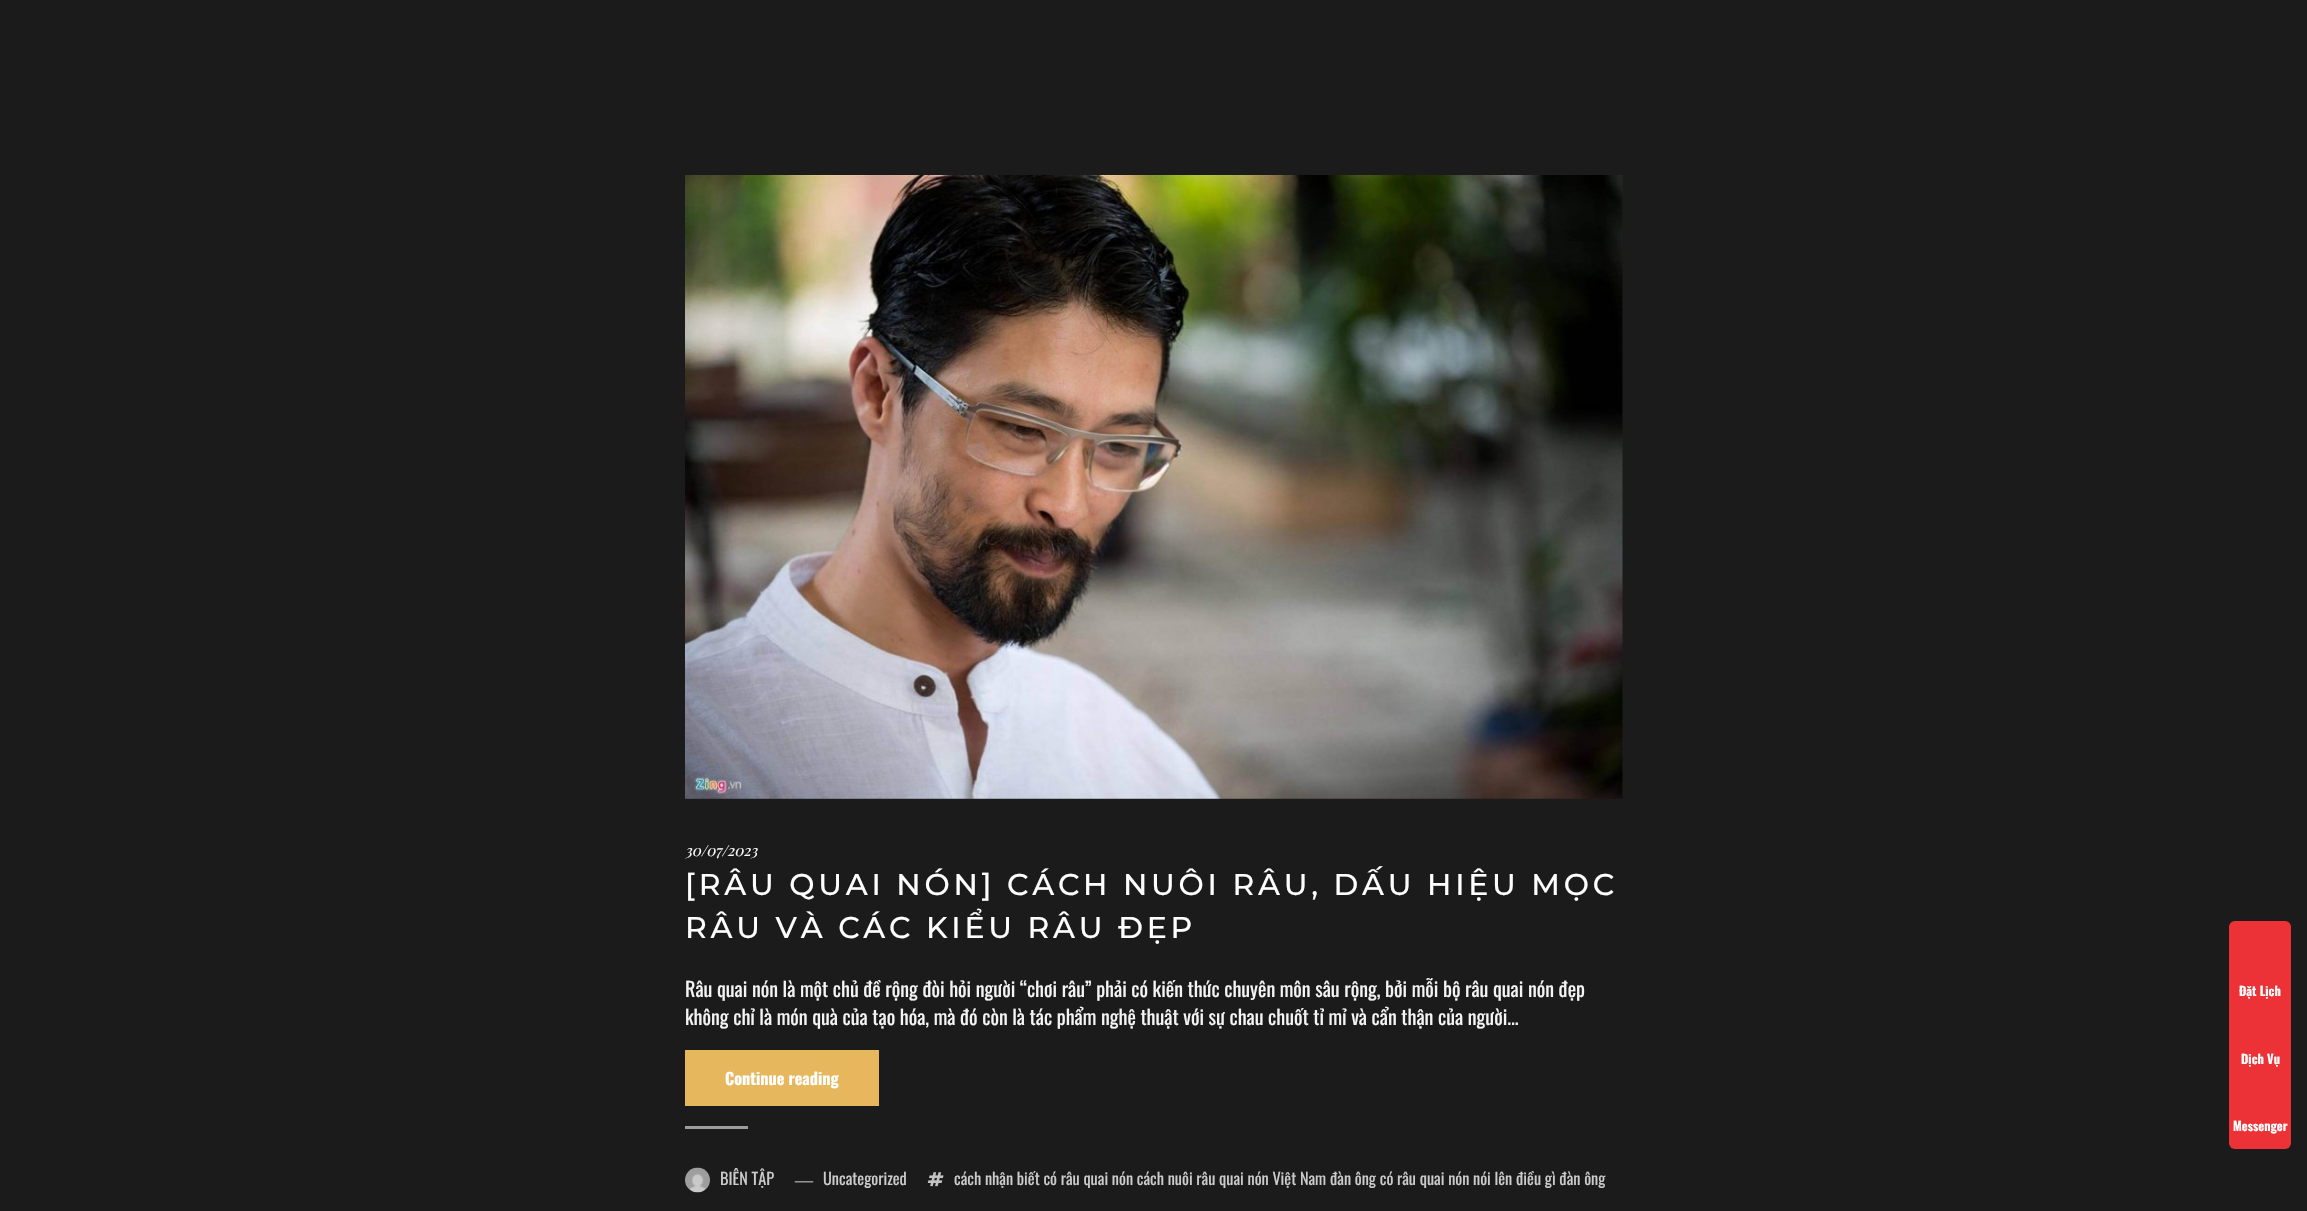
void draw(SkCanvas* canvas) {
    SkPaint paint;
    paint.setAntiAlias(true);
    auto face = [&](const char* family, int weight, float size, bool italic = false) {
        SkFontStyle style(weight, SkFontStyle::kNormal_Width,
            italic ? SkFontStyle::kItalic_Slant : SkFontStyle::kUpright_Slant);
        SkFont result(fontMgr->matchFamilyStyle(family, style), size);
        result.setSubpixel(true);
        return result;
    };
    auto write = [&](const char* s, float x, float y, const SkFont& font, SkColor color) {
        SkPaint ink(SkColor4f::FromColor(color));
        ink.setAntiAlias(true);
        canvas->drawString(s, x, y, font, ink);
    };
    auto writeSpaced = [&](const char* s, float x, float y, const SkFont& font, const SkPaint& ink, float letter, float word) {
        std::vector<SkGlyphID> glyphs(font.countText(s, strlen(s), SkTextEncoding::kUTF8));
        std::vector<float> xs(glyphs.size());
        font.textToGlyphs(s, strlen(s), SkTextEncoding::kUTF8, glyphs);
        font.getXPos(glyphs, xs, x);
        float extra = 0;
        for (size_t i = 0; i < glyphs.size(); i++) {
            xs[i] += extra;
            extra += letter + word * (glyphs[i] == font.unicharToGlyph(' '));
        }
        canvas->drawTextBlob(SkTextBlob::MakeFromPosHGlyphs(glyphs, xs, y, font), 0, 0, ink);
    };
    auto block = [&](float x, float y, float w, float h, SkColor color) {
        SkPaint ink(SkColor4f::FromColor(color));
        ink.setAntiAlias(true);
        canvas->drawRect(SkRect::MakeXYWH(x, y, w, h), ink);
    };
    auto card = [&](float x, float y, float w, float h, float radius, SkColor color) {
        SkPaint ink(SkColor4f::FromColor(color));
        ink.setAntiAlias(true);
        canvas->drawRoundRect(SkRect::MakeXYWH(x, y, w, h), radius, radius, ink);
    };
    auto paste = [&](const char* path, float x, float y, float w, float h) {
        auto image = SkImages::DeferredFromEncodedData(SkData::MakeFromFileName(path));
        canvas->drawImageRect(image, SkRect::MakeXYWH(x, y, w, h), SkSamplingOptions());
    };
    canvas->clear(SkColorSetRGB(27, 27, 27));
    paste("pic1.png", 685, 175, 938, 624);
    auto kFont1 = face("Playfair Display", 400, 15, true);
    write("30/07/2023", 685, 856, kFont1, SK_ColorWHITE);
    auto kFont2 = face("Montserrat", 500, 30);
    paint.setColor(SK_ColorWHITE);
    writeSpaced("[RÂU QUAI NÓN] CÁCH NUÔI RÂU, DẤU HIỆU MỌC", 685, 895, kFont2, paint, 3.75f, 0);
    writeSpaced("RÂU VÀ CÁC KIỂU RÂU ĐẸP", 685, 938, kFont2, paint, 3.75f, 0);
    auto kFont3 = face("Oswald", 400, 20);
    write("Râu quai nón là một chủ đề rộng đòi hỏi người “chơi râu” phải có kiến thức chuyên môn sâu rộng, bởi mỗi bộ râu quai nón đẹp", 685, 997, kFont3, SkColorSetRGB(244, 244, 244));
    write("không chỉ là món quà của tạo hóa, mà đó còn là tác phẩm nghệ thuật với sự chau chuốt tỉ mỉ và cẩn thận của người...", 685, 1025, kFont3, SkColorSetRGB(244, 244, 244));
    block(685, 1050, 194, 56, SkColorSetRGB(230, 183, 93));
    auto kFont4 = face("Oswald", 700, 16.25f);
    write("Continue reading", 725, 1085, kFont4, SK_ColorWHITE);
    block(685, 1126, 63, 3, SkColorSetRGB(156, 156, 156));
    paste("pic2.png", 685, 1167, 25, 26);
    auto kFont5 = face("Oswald", 400, 16.25f);
    write("BIÊN TẬP", 720, 1185, kFont5, SkColorSetRGB(203, 203, 203));
    auto kFont6 = face("Liberation Serif", 400, 18);
    write("—", 795, 1186, kFont6, SkColorSetRGB(194, 194, 194));
    write("Uncategorized", 823, 1185, kFont5, SkColorSetRGB(203, 203, 203));
    paste("pic3.png", 927, 1172, 17, 15);
    write("cách nhận biết có râu quai nón cách nuôi râu quai nón Việt Nam đàn ông có râu quai nón nói lên điều gì đàn ông", 954, 1185, kFont5, SkColorSetRGB(203, 203, 203));
    card(2229, 921, 62, 228, 6, SkColorSetRGB(236, 50, 55));
    auto kFont7 = face("Oswald", 700, 12.5f);
    write("Đặt Lịch", 2239, 996, kFont7, SK_ColorWHITE);
    write("Dịch Vụ", 2241, 1064, kFont7, SK_ColorWHITE);
    write("Messenger", 2233, 1131, kFont7, SK_ColorWHITE);
}
